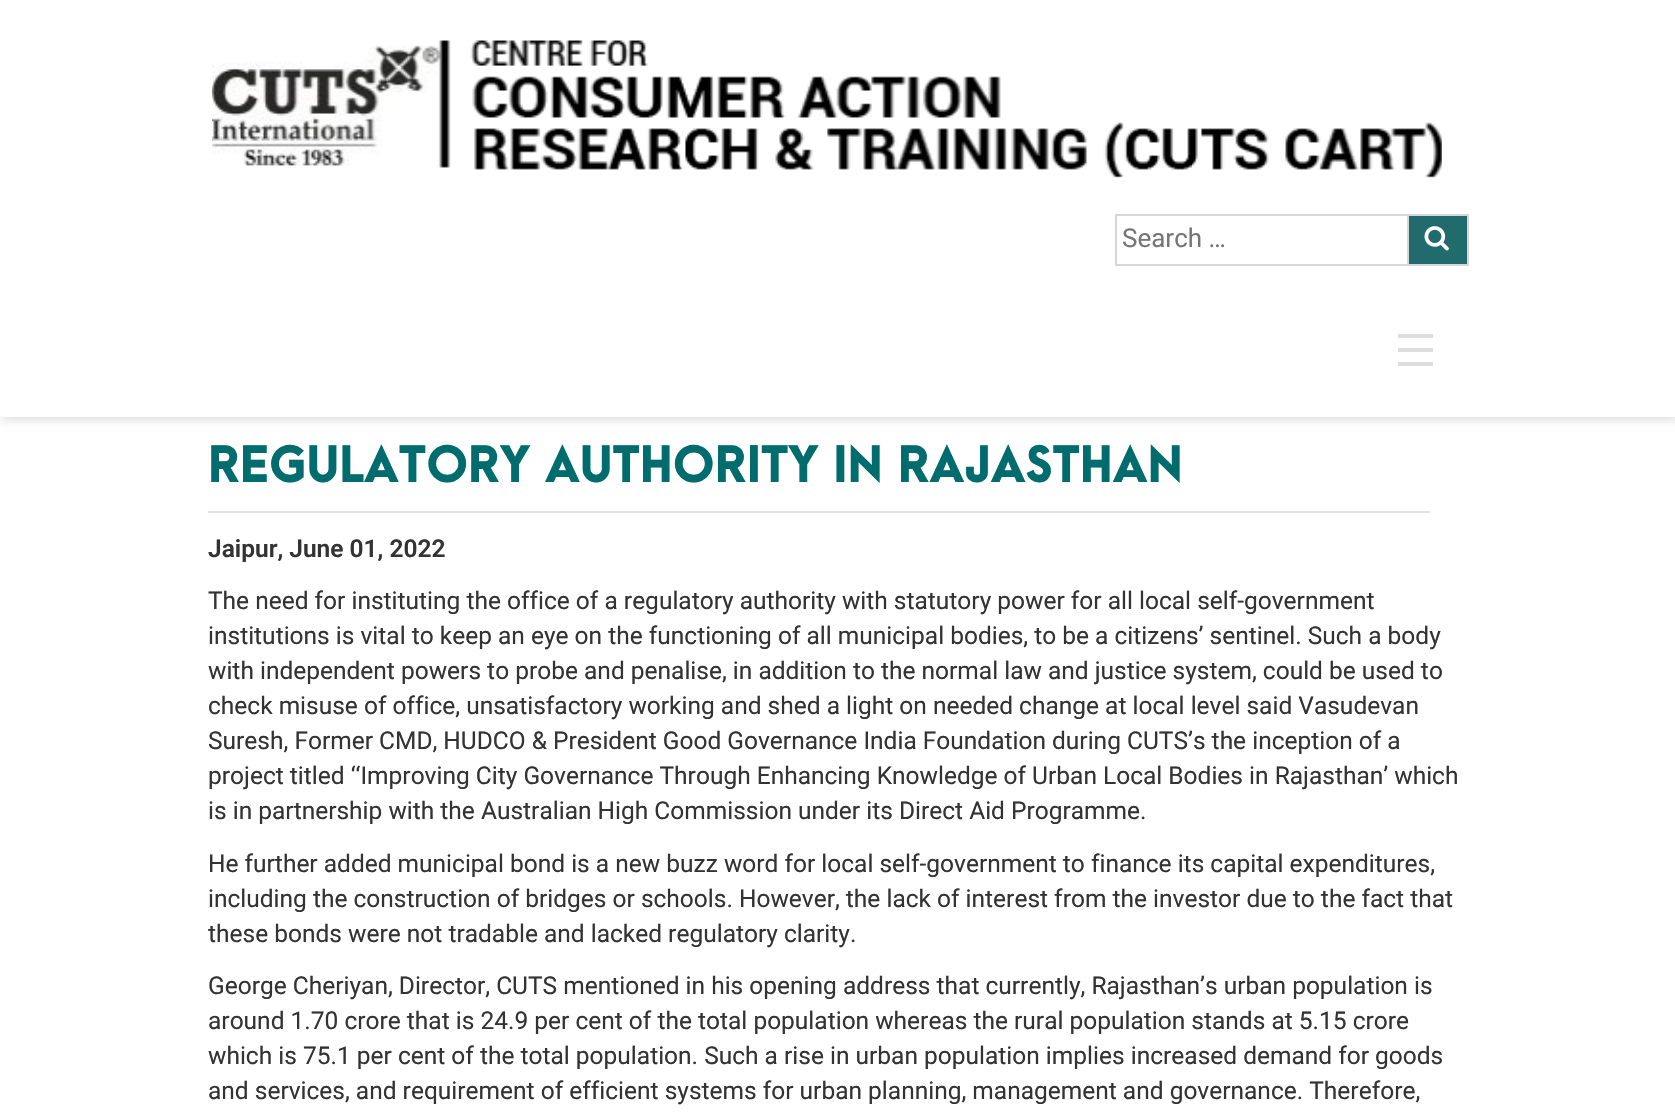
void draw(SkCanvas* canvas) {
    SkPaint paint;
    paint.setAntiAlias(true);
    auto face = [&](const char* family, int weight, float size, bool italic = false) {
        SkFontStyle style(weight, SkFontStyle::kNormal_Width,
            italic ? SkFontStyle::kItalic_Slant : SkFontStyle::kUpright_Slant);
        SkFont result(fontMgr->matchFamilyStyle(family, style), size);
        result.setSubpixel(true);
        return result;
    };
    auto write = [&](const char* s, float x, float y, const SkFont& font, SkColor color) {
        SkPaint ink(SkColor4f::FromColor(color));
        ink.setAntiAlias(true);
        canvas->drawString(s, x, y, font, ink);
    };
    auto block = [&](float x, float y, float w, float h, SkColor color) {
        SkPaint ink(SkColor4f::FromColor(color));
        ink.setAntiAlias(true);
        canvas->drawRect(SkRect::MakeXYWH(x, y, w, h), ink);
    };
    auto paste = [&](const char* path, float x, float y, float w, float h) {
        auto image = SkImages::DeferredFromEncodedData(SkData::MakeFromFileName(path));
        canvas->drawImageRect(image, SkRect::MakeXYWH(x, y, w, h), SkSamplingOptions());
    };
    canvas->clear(SK_ColorWHITE);
    paint.setColor(SkColorSetRGB(222, 222, 222));
    paint.setMaskFilter(SkMaskFilter::MakeBlur(kNormal_SkBlurStyle, 4.5f));
    canvas->drawRect(SkRect::MakeXYWH(2, 4, 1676, 416), paint);
    paint.setMaskFilter(nullptr);
    block(0, 0, 1675, 417, SK_ColorWHITE);
    paste("pic1.png", 212, 40, 1230, 138);
    paint.setStyle(SkPaint::kStroke_Style);
    paint.setStrokeWidth(2);
    paint.setColor(SkColorSetRGB(214, 214, 214));
    canvas->drawRect(SkRect::MakeXYWH(1116, 215, 292, 50), paint);
    auto kFont1 = face("Roboto", 400, 26);
    write("Search …", 1122, 247, kFont1, SkColorSetRGB(117, 117, 117));
    block(1409, 216, 58, 48, SkColorSetRGB(33, 107, 109));
    block(1409, 214, 59, 2, SkColorSetRGB(214, 214, 214));
    block(1467, 214, 2, 52, SkColorSetRGB(214, 214, 214));
    block(1409, 264, 59, 2, SkColorSetRGB(214, 214, 214));
    paste("pic2.png", 1424, 226, 25, 25);
    block(1398, 334, 35, 4, SkColorSetRGB(221, 221, 221));
    block(1398, 348, 35, 4, SkColorSetRGB(221, 221, 221));
    block(1398, 362, 35, 4, SkColorSetRGB(221, 221, 221));
    block(208, 511, 1222, 2, SkColorSetRGB(226, 226, 226));
    auto kFont2 = face("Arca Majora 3", 900, 45.5f);
    write("REGULATORY AUTHORITY IN RAJASTHAN", 208, 482, kFont2, SkColorSetRGB(0, 108, 109));
    auto kFont3 = face("Roboto", 600, 24.5f);
    write("Jaipur, June 01, 2022", 208, 557, kFont3, SkColorSetRGB(51, 51, 51));
    auto kFont4 = face("Roboto", 400, 24.5f);
    write("The need for instituting the office of a regulatory authority with statutory power for all local self-government", 208, 609, kFont4, SkColorSetRGB(51, 51, 51));
    write("institutions is vital to keep an eye on the functioning of all municipal bodies, to be a citizens’ sentinel. Such a body", 208, 644, kFont4, SkColorSetRGB(51, 51, 51));
    write("with independent powers to probe and penalise, in addition to the normal law and justice system, could be used to", 208, 679, kFont4, SkColorSetRGB(51, 51, 51));
    write("check misuse of office, unsatisfactory working and shed a light on needed change at local level said Vasudevan", 208, 714, kFont4, SkColorSetRGB(51, 51, 51));
    write("Suresh, Former CMD, HUDCO & President Good Governance India Foundation during CUTS’s the inception of a", 208, 749, kFont4, SkColorSetRGB(51, 51, 51));
    write("project titled ‘‘Improving City Governance Through Enhancing Knowledge of Urban Local Bodies in Rajasthan’ which", 208, 784, kFont4, SkColorSetRGB(51, 51, 51));
    write("is in partnership with the Australian High Commission under its Direct Aid Programme.", 208, 819, kFont4, SkColorSetRGB(51, 51, 51));
    write("He further added municipal bond is a new buzz word for local self-government to finance its capital expenditures,", 208, 872, kFont4, SkColorSetRGB(51, 51, 51));
    write("including the construction of bridges or schools. However, the lack of interest from the investor due to the fact that", 208, 907, kFont4, SkColorSetRGB(51, 51, 51));
    write("these bonds were not tradable and lacked regulatory clarity.", 208, 942, kFont4, SkColorSetRGB(51, 51, 51));
    write("George Cheriyan, Director, CUTS mentioned in his opening address that currently, Rajasthan’s urban population is", 208, 994, kFont4, SkColorSetRGB(51, 51, 51));
    write("around 1.70 crore that is 24.9 per cent of the total population whereas the rural population stands at 5.15 crore", 208, 1029, kFont4, SkColorSetRGB(51, 51, 51));
    write("which is 75.1 per cent of the total population. Such a rise in urban population implies increased demand for goods", 208, 1064, kFont4, SkColorSetRGB(51, 51, 51));
    write("and services, and requirement of efficient systems for urban planning, management and governance. Therefore,", 208, 1099, kFont4, SkColorSetRGB(51, 51, 51));
}
